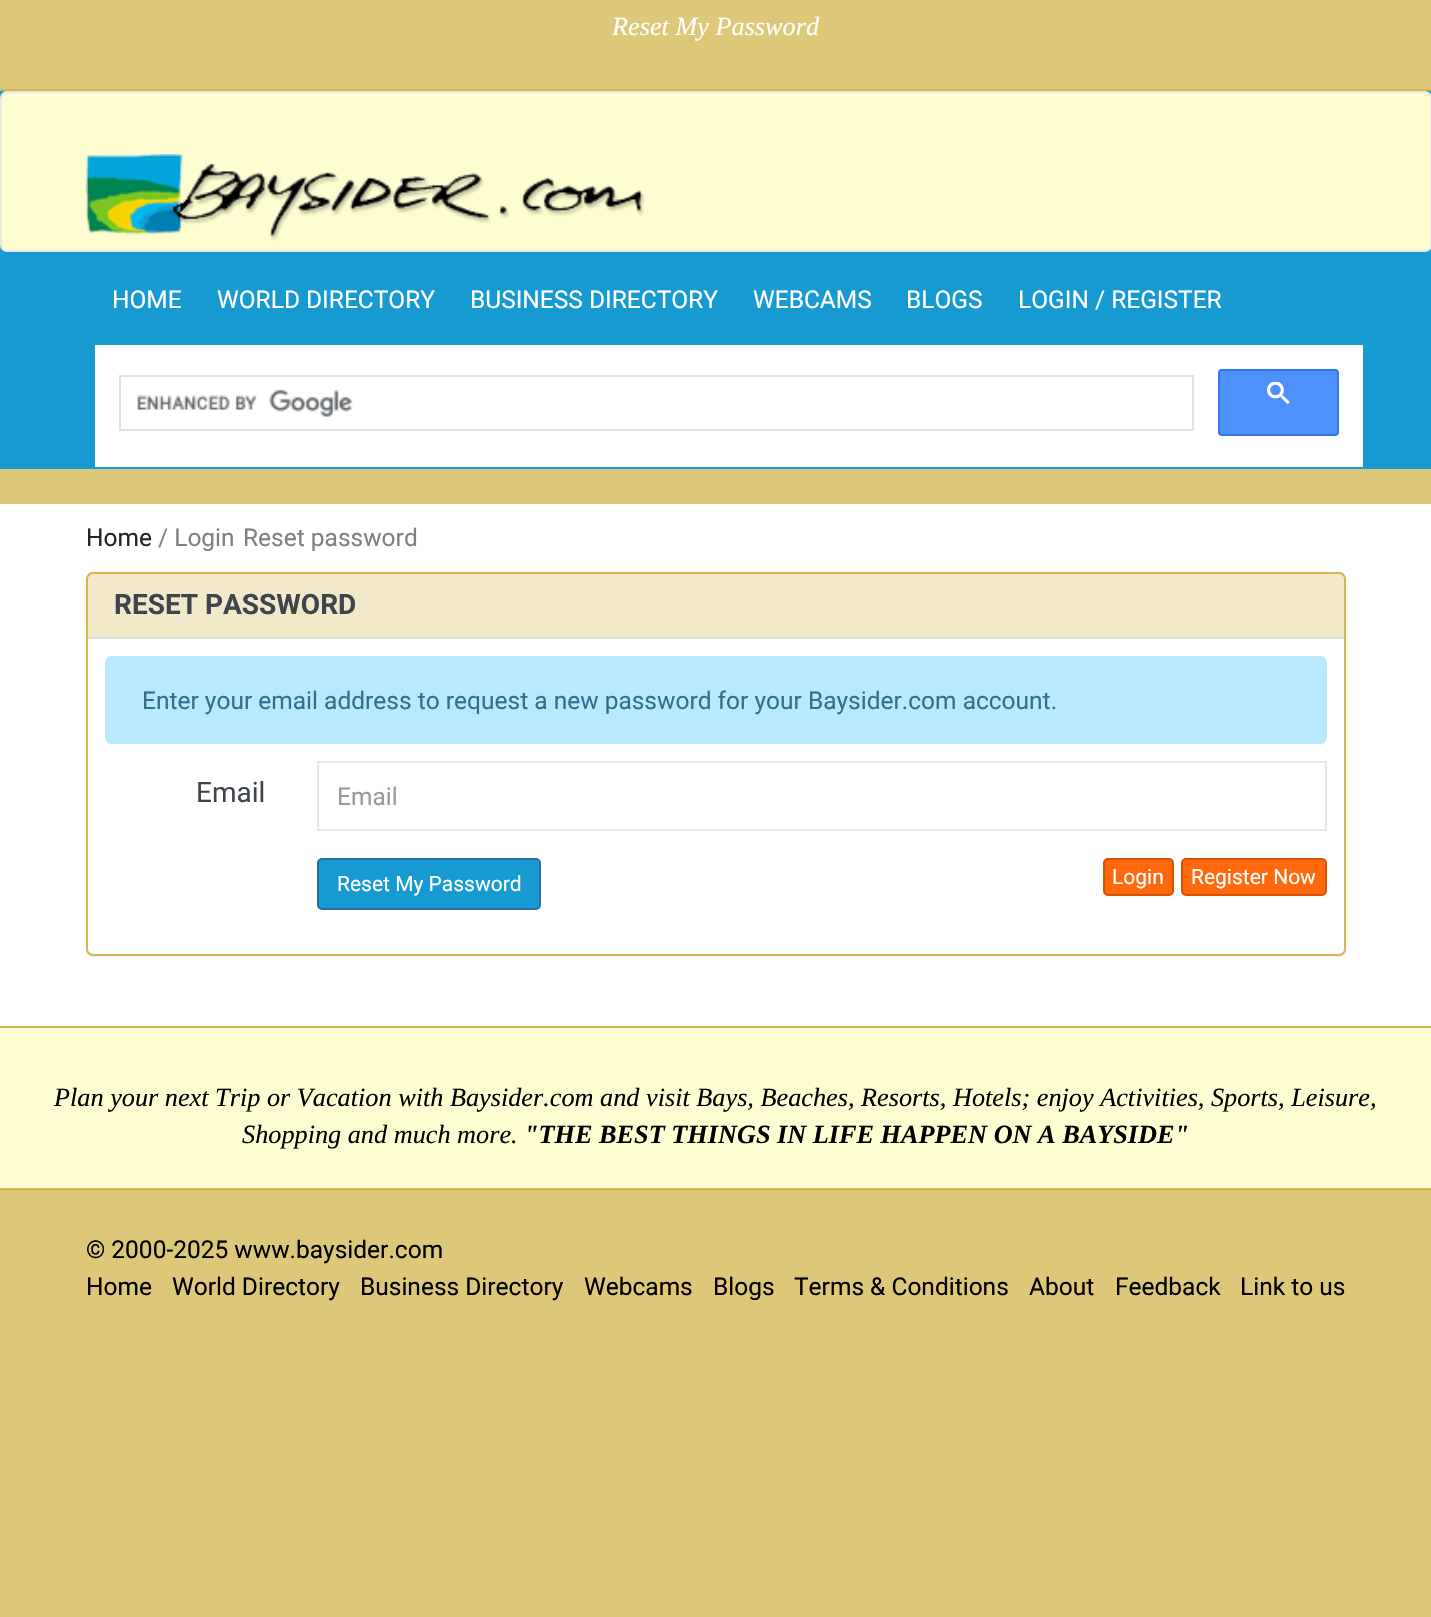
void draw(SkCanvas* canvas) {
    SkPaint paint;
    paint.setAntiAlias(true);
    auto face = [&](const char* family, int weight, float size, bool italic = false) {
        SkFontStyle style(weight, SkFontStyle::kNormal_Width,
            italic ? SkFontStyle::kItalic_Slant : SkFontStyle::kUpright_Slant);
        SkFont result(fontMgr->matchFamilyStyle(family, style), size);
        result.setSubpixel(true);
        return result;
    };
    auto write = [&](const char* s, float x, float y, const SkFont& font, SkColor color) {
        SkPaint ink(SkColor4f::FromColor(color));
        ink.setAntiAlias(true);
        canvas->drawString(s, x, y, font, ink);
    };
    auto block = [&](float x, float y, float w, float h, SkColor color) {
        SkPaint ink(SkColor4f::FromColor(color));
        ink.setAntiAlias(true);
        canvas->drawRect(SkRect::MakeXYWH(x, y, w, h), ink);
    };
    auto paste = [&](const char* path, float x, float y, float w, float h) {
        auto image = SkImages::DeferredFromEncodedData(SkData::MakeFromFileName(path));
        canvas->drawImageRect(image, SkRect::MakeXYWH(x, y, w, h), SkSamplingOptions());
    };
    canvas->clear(SkColorSetRGB(221, 199, 120));
    block(0, 91, 1431, 378, SkColorSetRGB(23, 154, 210));
    block(0, 89, 1431, 2, SkColorSetRGB(211, 182, 79));
    auto kFont1 = face("Liberation Serif", 400, 26.25f, true);
    write("Reset My Password", 612, 35, kFont1, SK_ColorWHITE);
    paint.setColor(SkColorSetRGB(254, 253, 209));
    canvas->drawRoundRect(SkRect::MakeXYWH(1, 92, 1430, 159), 6, 6, paint);
    paint.setStyle(SkPaint::kStroke_Style);
    paint.setStrokeWidth(2);
    paint.setColor(SkColorSetRGB(231, 231, 231));
    canvas->drawRoundRect(SkRect::MakeXYWH(1, 92, 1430, 159), 6, 6, paint);
    paste("pic1.png", 85, 154, 560, 87);
    auto kFont2 = face("Roboto", 400, 24.5f);
    write("HOME", 112, 308, kFont2, SK_ColorWHITE);
    write("WORLD DIRECTORY", 217, 308, kFont2, SK_ColorWHITE);
    write("BUSINESS DIRECTORY", 470, 308, kFont2, SK_ColorWHITE);
    write("WEBCAMS", 753, 308, kFont2, SK_ColorWHITE);
    write("BLOGS", 906, 308, kFont2, SK_ColorWHITE);
    write("LOGIN / REGISTER", 1018, 308, kFont2, SK_ColorWHITE);
    block(95, 345, 1268, 122, SK_ColorWHITE);
    paint.setColor(SkColorSetRGB(223, 225, 229));
    canvas->drawRect(SkRect::MakeXYWH(120, 376, 1073, 54), paint);
    paste("pic2.png", 137, 389, 216, 28);
    paint.setStyle(SkPaint::kFill_Style);
    paint.setColor(SkColorSetRGB(77, 144, 254));
    canvas->drawRoundRect(SkRect::MakeXYWH(1219, 370, 119, 65), 3, 3, paint);
    paint.setStyle(SkPaint::kStroke_Style);
    paint.setColor(SkColorSetRGB(48, 121, 237));
    canvas->drawRoundRect(SkRect::MakeXYWH(1219, 370, 119, 65), 3, 3, paint);
    paste("pic3.png", 1267, 382, 23, 22);
    block(0, 504, 1431, 522, SK_ColorWHITE);
    write("Home", 86, 546, kFont2, SkColorSetRGB(33, 36, 40));
    write("/ Login", 158, 546, kFont2, SkColorSetRGB(128, 128, 128));
    write("Reset password", 243, 546, kFont2, SkColorSetRGB(128, 128, 128));
    paint.setStyle(SkPaint::kFill_Style);
    paint.setColor(SkColorSetARGB(13, 0, 0, 0));
    paint.setMaskFilter(SkMaskFilter::MakeBlur(kNormal_SkBlurStyle, 1));
    canvas->drawRoundRect(SkRect::MakeXYWH(86, 574, 1260, 383), 7, 7, paint);
    paint.setMaskFilter(nullptr);
    paint.setColor(SK_ColorWHITE);
    canvas->drawRoundRect(SkRect::MakeXYWH(87, 573, 1258, 382), 6, 6, paint);
    paint.setStyle(SkPaint::kStroke_Style);
    paint.setColor(SkColorSetRGB(211, 182, 79));
    canvas->drawRoundRect(SkRect::MakeXYWH(87, 573, 1258, 382), 6, 6, paint);
    paint.setStyle(SkPaint::kFill_Style);
    paint.setColor(SkColorSetARGB(102, 221, 199, 120));
    canvas->drawPath(SkPathBuilder().moveTo(93, 574).lineTo(1339, 574).cubicTo(1342, 574, 1344, 576, 1344, 579).lineTo(1344, 639).lineTo(88, 639).lineTo(88, 579).cubicTo(88, 576, 90, 574, 93, 574).close().detach(), paint);
    block(88, 637, 1256, 2, SkColorSetRGB(221, 221, 221));
    auto kFont3 = face("Roboto", 700, 28);
    write("RESET PASSWORD", 114, 614, kFont3, SkColorSetRGB(62, 69, 76));
    paint.setColor(SkColorSetRGB(184, 233, 255));
    canvas->drawRoundRect(SkRect::MakeXYWH(106, 657, 1220, 86), 6, 6, paint);
    paint.setStyle(SkPaint::kStroke_Style);
    paint.setColor(SkColorSetRGB(188, 232, 241));
    canvas->drawRoundRect(SkRect::MakeXYWH(106, 657, 1220, 86), 6, 6, paint);
    write("Enter your email address to request a new password for your Baysider.com account.", 142, 709, kFont2, SkColorSetRGB(49, 112, 143));
    auto kFont4 = face("Roboto", 400, 28);
    write("Email", 196, 802, kFont4, SkColorSetRGB(62, 69, 76));
    paint.setColor(SkColorSetRGB(232, 232, 232));
    canvas->drawRect(SkRect::MakeXYWH(318, 762, 1008, 68), paint);
    write("Email", 337, 805, kFont2, SkColorSetRGB(153, 153, 153));
    paint.setStyle(SkPaint::kFill_Style);
    paint.setColor(SkColorSetRGB(23, 154, 210));
    canvas->drawRoundRect(SkRect::MakeXYWH(318, 859, 222, 50), 4, 4, paint);
    paint.setStyle(SkPaint::kStroke_Style);
    paint.setColor(SkColorSetRGB(46, 109, 164));
    canvas->drawRoundRect(SkRect::MakeXYWH(318, 859, 222, 50), 4, 4, paint);
    auto kFont5 = face("Roboto", 400, 21);
    write("Reset My Password", 337, 891, kFont5, SK_ColorWHITE);
    paint.setStyle(SkPaint::kFill_Style);
    paint.setColor(SkColorSetRGB(255, 104, 13));
    canvas->drawRoundRect(SkRect::MakeXYWH(1104, 859, 69, 36), 4, 4, paint);
    paint.setStyle(SkPaint::kStroke_Style);
    paint.setColor(SkColorSetRGB(217, 82, 0));
    canvas->drawRoundRect(SkRect::MakeXYWH(1104, 859, 69, 36), 4, 4, paint);
    write("Login", 1112, 884, kFont5, SK_ColorWHITE);
    paint.setStyle(SkPaint::kFill_Style);
    paint.setColor(SkColorSetRGB(255, 104, 13));
    canvas->drawRoundRect(SkRect::MakeXYWH(1182, 859, 144, 36), 4, 4, paint);
    paint.setStyle(SkPaint::kStroke_Style);
    paint.setColor(SkColorSetRGB(217, 82, 0));
    canvas->drawRoundRect(SkRect::MakeXYWH(1182, 859, 144, 36), 4, 4, paint);
    write("Register Now", 1191, 884, kFont5, SK_ColorWHITE);
    block(0, 1028, 1431, 160, SkColorSetRGB(254, 253, 209));
    block(0, 1026, 1431, 2, SkColorSetRGB(211, 182, 79));
    write("Plan your next Trip or Vacation with Baysider.com and visit Bays, Beaches, Resorts, Hotels; enjoy Activities, Sports, Leisure,", 54, 1106, kFont1, SK_ColorBLACK);
    write("Shopping and much more.", 242, 1143, kFont1, SK_ColorBLACK);
    auto kFont6 = face("Liberation Serif", 700, 26.25f, true);
    write("\"THE BEST THINGS IN LIFE HAPPEN ON A BAYSIDE\"", 524, 1143, kFont6, SK_ColorBLACK);
    block(0, 1188, 1431, 2, SkColorSetRGB(211, 182, 79));
    write("© 2000-2025 www.baysider.com", 86, 1258, kFont2, SK_ColorBLACK);
    write("Home", 86, 1295, kFont2, SK_ColorBLACK);
    write("World Directory", 172, 1295, kFont2, SK_ColorBLACK);
    write("Business Directory", 360, 1295, kFont2, SK_ColorBLACK);
    write("Webcams", 584, 1295, kFont2, SK_ColorBLACK);
    write("Blogs", 713, 1295, kFont2, SK_ColorBLACK);
    write("Terms & Conditions", 794, 1295, kFont2, SK_ColorBLACK);
    write("About", 1029, 1295, kFont2, SK_ColorBLACK);
    write("Feedback", 1115, 1295, kFont2, SK_ColorBLACK);
    write("Link to us", 1240, 1295, kFont2, SK_ColorBLACK);
}
